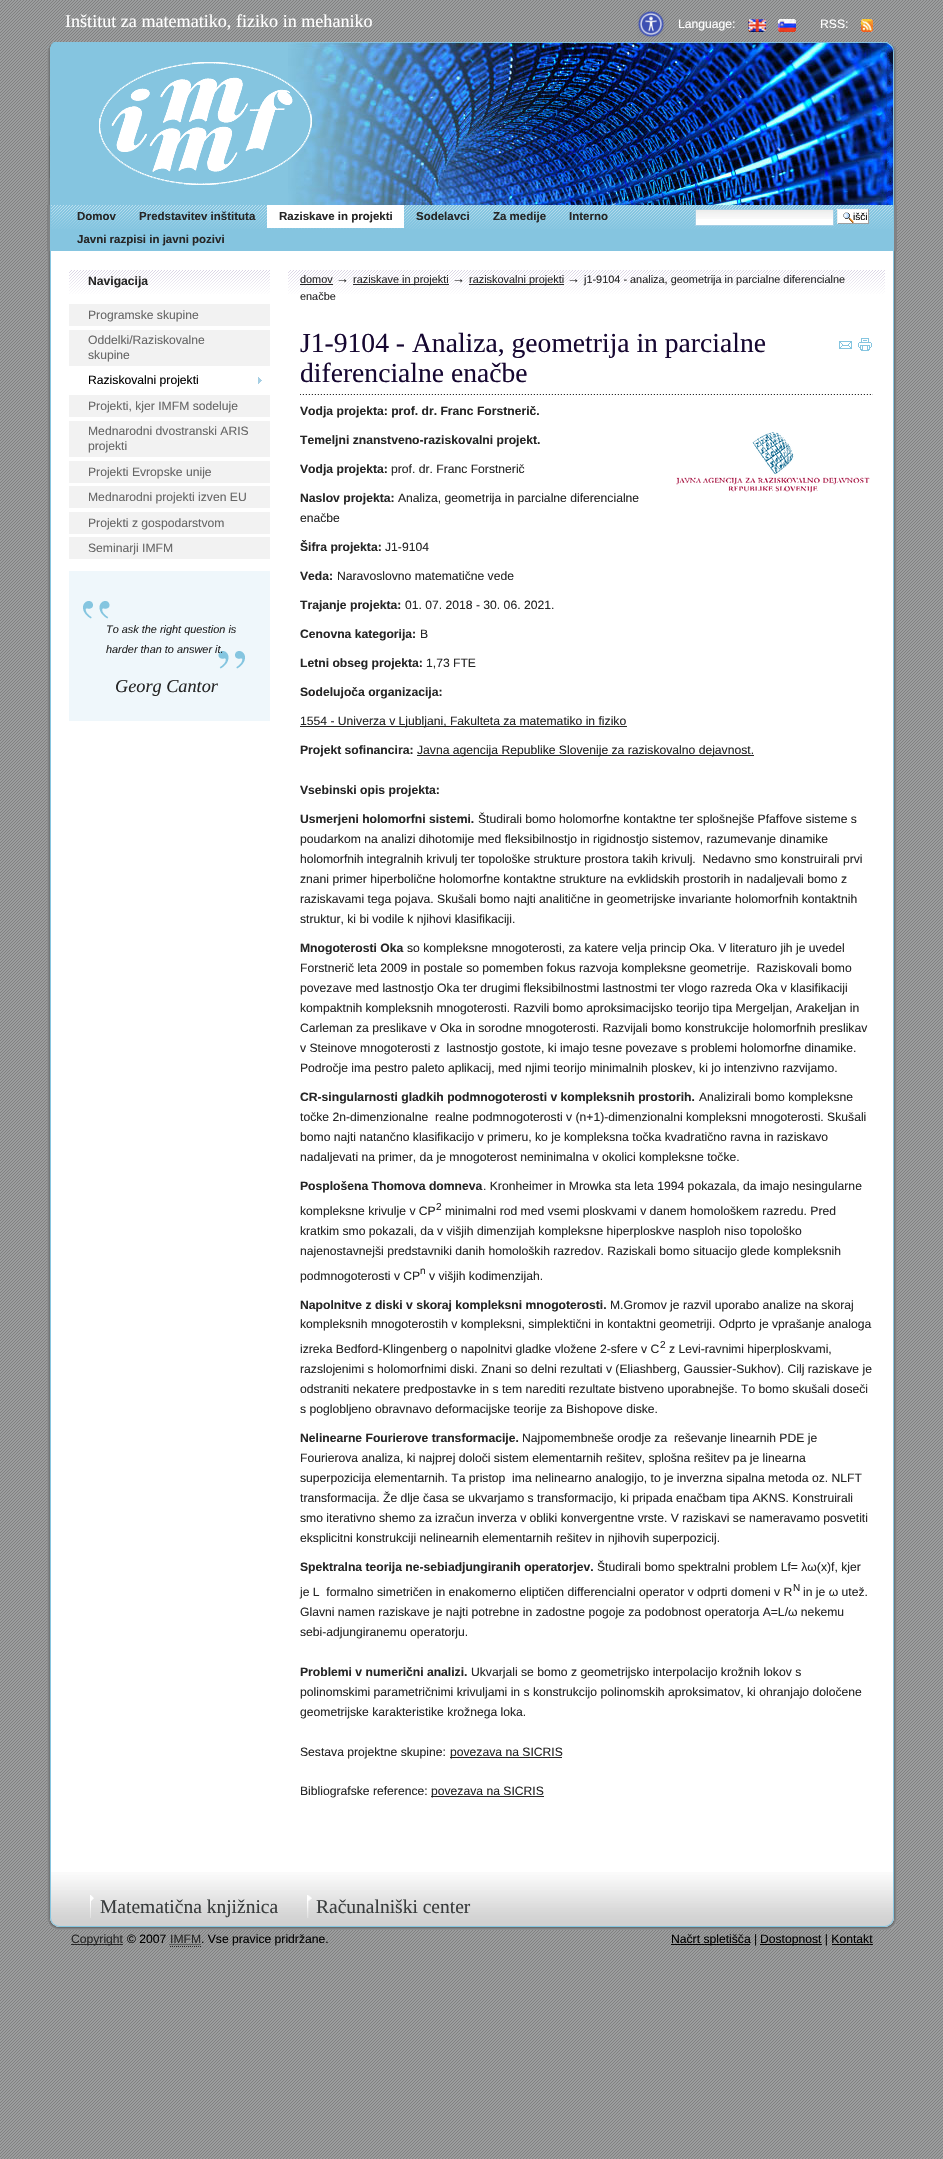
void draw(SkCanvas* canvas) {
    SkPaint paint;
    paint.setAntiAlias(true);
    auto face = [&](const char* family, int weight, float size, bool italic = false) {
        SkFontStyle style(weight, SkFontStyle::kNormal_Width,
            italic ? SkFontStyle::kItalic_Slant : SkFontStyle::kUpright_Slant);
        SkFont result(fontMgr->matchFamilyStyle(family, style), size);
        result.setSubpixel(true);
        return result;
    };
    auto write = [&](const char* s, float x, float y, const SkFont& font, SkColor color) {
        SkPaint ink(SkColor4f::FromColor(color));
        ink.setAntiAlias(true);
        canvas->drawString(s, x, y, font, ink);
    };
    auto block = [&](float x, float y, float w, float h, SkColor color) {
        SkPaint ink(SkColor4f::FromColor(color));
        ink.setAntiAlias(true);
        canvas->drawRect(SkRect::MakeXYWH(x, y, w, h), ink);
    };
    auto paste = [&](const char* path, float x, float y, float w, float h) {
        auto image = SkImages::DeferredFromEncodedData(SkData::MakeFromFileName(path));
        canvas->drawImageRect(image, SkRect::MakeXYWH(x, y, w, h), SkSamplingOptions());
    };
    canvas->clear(SK_ColorWHITE);
    paste("pic1.png", 0, 0, 943, 2159);
    auto kFont1 = face("Liberation Serif", 400, 18.1f);
    write("Inštitut za matematiko, fiziko in mehaniko", 65, 27, kFont1, SK_ColorWHITE);
    paste("pic2.png", 637, 10, 28, 28);
    auto kFont2 = face("Liberation Sans", 400, 12.15f);
    write("Language:", 678, 28, kFont2, SK_ColorWHITE);
    paste("pic3.png", 748, 19, 18, 13);
    paste("pic4.png", 778, 19, 18, 13);
    write("RSS:", 820, 28, kFont2, SK_ColorWHITE);
    paste("pic5.png", 861, 19, 12, 13);
    paste("pic6.png", 47, 42, 10, 163);
    paste("pic7.png", 887, 42, 10, 163);
    block(57, 42, 231, 163, SkColorSetRGB(133, 197, 224));
    paste("pic8.png", 288, 42, 599, 163);
    paste("pic9.png", 99, 62, 213, 123);
    block(50, 205, 844, 46, SkColorSetRGB(133, 197, 224));
    block(47, 205, 3, 46, SkColorSetRGB(129, 130, 131));
    block(894, 205, 3, 46, SkColorSetRGB(130, 130, 132));
    paste("pic10.png", 51, 205, 842, 24);
    auto kFont3 = face("Liberation Sans", 700, 11.5f);
    write("Domov", 77, 220, kFont3, SkColorSetRGB(38, 38, 38));
    write("Predstavitev inštituta", 139, 220, kFont3, SkColorSetRGB(38, 38, 38));
    block(267, 205, 137, 23, SK_ColorWHITE);
    write("Raziskave in projekti", 279, 220, kFont3, SkColorSetRGB(38, 38, 38));
    write("Sodelavci", 416, 220, kFont3, SkColorSetRGB(38, 38, 38));
    write("Za medije", 493, 220, kFont3, SkColorSetRGB(38, 38, 38));
    write("Interno", 569, 220, kFont3, SkColorSetRGB(38, 38, 38));
    write("Javni razpisi in javni pozivi", 77, 243, kFont3, SkColorSetRGB(38, 38, 38));
    block(696, 219, 137, 6, SK_ColorWHITE);
    paste("pic11.png", 696, 210, 137, 9);
    paint.setStyle(SkPaint::kStroke_Style);
    paint.setStrokeWidth(1);
    paint.setColor(SkColorSetRGB(166, 207, 228));
    canvas->drawRect(SkRect::MakeXYWH(695.5f, 209.5f, 138, 16), paint);
    block(838, 210, 30, 13, SK_ColorWHITE);
    paste("pic12.png", 843, 212, 11, 11);
    block(837, 209, 32, 1, SkColorSetRGB(238, 238, 238));
    block(868, 209, 1, 15, SkColorSetRGB(159, 159, 159));
    block(837, 223, 32, 1, SkColorSetRGB(159, 159, 159));
    block(837, 209, 1, 15, SkColorSetRGB(238, 238, 238));
    auto kFont4 = face("Liberation Sans", 400, 10);
    write("išči", 853, 220, kFont4, SK_ColorBLACK);
    block(51, 251, 842, 1621, SK_ColorWHITE);
    paste("pic13.png", 47, 251, 4, 1605);
    paste("pic14.png", 893, 251, 4, 1605);
    paste("pic15.png", 69, 270, 201, 24);
    auto kFont5 = face("Liberation Sans", 700, 12.15f);
    write("Navigacija", 88, 285, kFont5, SkColorSetRGB(38, 38, 38));
    block(69, 304, 201, 22, SkColorSetRGB(242, 242, 242));
    write("Programske skupine", 88, 319, kFont2, SkColorSetRGB(102, 102, 102));
    block(69, 330, 201, 36, SkColorSetRGB(242, 242, 242));
    write("Oddelki/Raziskovalne", 88, 344, kFont2, SkColorSetRGB(102, 102, 102));
    write("skupine", 88, 359, kFont2, SkColorSetRGB(102, 102, 102));
    paste("pic16.png", 258, 377, 4, 7);
    write("Raziskovalni projekti", 88, 384, kFont2, SK_ColorBLACK);
    block(69, 395, 201, 22, SkColorSetRGB(242, 242, 242));
    write("Projekti, kjer IMFM sodeluje", 88, 410, kFont2, SkColorSetRGB(102, 102, 102));
    block(69, 421, 201, 36, SkColorSetRGB(242, 242, 242));
    write("Mednarodni dvostranski ARIS", 88, 435, kFont2, SkColorSetRGB(102, 102, 102));
    write("projekti", 88, 450, kFont2, SkColorSetRGB(102, 102, 102));
    block(69, 461, 201, 22, SkColorSetRGB(242, 242, 242));
    write("Projekti Evropske unije", 88, 476, kFont2, SkColorSetRGB(102, 102, 102));
    block(69, 486, 201, 22, SkColorSetRGB(242, 242, 242));
    write("Mednarodni projekti izven EU", 88, 501, kFont2, SkColorSetRGB(102, 102, 102));
    block(69, 512, 201, 22, SkColorSetRGB(242, 242, 242));
    write("Projekti z gospodarstvom", 88, 527, kFont2, SkColorSetRGB(102, 102, 102));
    block(69, 537, 201, 22, SkColorSetRGB(242, 242, 242));
    write("Seminarji IMFM", 88, 552, kFont2, SkColorSetRGB(102, 102, 102));
    block(69, 571, 201, 150, SkColorSetRGB(239, 247, 251));
    paste("pic17.png", 83, 601, 27, 18);
    paste("pic18.png", 218, 651, 27, 18);
    auto kFont6 = face("Liberation Sans", 400, 10.9f, true);
    write("To ask the right question is", 106, 633, kFont6, SkColorSetRGB(38, 38, 38));
    write("harder than to answer it.", 106, 653, kFont6, SkColorSetRGB(38, 38, 38));
    auto kFont7 = face("Liberation Serif", 400, 18.25f, true);
    write("Georg Cantor", 115, 692, kFont7, SkColorSetRGB(38, 38, 38));
    paste("pic19.png", 288, 270, 597, 24);
    auto kFont8 = face("Liberation Sans", 400, 10.9f);
    write("domov", 300, 283, kFont8, SkColorSetRGB(38, 38, 38));
    block(300, 284, 33, 1, SkColorSetRGB(38, 38, 38));
    auto kFont9 = face("Liberation Sans", 400, 13);
    write("→", 336, 283, kFont9, SkColorSetRGB(38, 38, 38));
    block(353, 284, 96, 1, SkColorSetRGB(38, 38, 38));
    write("raziskave in projekti", 353, 283, kFont8, SkColorSetRGB(38, 38, 38));
    write("→", 452, 283, kFont9, SkColorSetRGB(38, 38, 38));
    block(469, 284, 95, 1, SkColorSetRGB(38, 38, 38));
    write("raziskovalni projekti", 469, 283, kFont8, SkColorSetRGB(38, 38, 38));
    write("→", 567, 283, kFont9, SkColorSetRGB(38, 38, 38));
    write("j1-9104 - analiza, geometrija in parcialne diferencialne", 584, 283, kFont8, SkColorSetRGB(38, 38, 38));
    write("enačbe", 300, 300, kFont8, SkColorSetRGB(38, 38, 38));
    paste("pic20.png", 300, 394, 573, 1);
    auto kFont10 = face("Liberation Serif", 400, 27.6f);
    write("J1-9104 - Analiza, geometrija in parcialne", 300, 352, kFont10, SkColorSetRGB(22, 7, 49));
    write("diferencialne enačbe", 300, 382, kFont10, SkColorSetRGB(22, 7, 49));
    paste("pic21.png", 839, 341, 13, 8);
    paste("pic22.png", 858, 338, 14, 13);
    write("Vodja projekta: prof. dr. Franc Forstnerič.", 300, 415, kFont5, SkColorSetRGB(38, 38, 38));
    paste("pic23.png", 676, 432, 194, 61);
    write("Temeljni znanstveno-raziskovalni projekt.", 300, 444, kFont5, SkColorSetRGB(38, 38, 38));
    write("Vodja projekta:", 300, 473, kFont5, SkColorSetRGB(38, 38, 38));
    write("prof. dr. Franc Forstnerič", 391, 473, kFont2, SkColorSetRGB(38, 38, 38));
    write("Naslov projekta:", 300, 502, kFont5, SkColorSetRGB(38, 38, 38));
    write("Analiza, geometrija in parcialne diferencialne", 398, 502, kFont2, SkColorSetRGB(38, 38, 38));
    write("enačbe", 300, 522, kFont2, SkColorSetRGB(38, 38, 38));
    write("Šifra projekta:", 300, 551, kFont5, SkColorSetRGB(38, 38, 38));
    write("J1-9104", 385, 551, kFont2, SkColorSetRGB(38, 38, 38));
    write("Veda:", 300, 580, kFont5, SkColorSetRGB(38, 38, 38));
    write("Naravoslovno matematične vede", 337, 580, kFont2, SkColorSetRGB(38, 38, 38));
    write("Trajanje projekta:", 300, 609, kFont5, SkColorSetRGB(38, 38, 38));
    write("01. 07. 2018 - 30. 06. 2021.", 405, 609, kFont2, SkColorSetRGB(38, 38, 38));
    write("Cenovna kategorija:", 300, 638, kFont5, SkColorSetRGB(38, 38, 38));
    write("B", 420, 638, kFont2, SkColorSetRGB(38, 38, 38));
    write("Letni obseg projekta:", 300, 667, kFont5, SkColorSetRGB(38, 38, 38));
    write("1,73 FTE", 426, 667, kFont2, SkColorSetRGB(38, 38, 38));
    write("Sodelujoča organizacija:", 300, 696, kFont5, SkColorSetRGB(38, 38, 38));
    block(300, 726, 327, 1, SkColorSetRGB(38, 38, 38));
    write("1554 - Univerza v Ljubljani, Fakulteta za matematiko in fiziko", 300, 725, kFont2, SkColorSetRGB(38, 38, 38));
    write("Projekt sofinancira:", 300, 754, kFont5, SkColorSetRGB(38, 38, 38));
    block(417, 755, 337, 1, SkColorSetRGB(38, 38, 38));
    write("Javna agencija Republike Slovenije za raziskovalno dejavnost.", 417, 754, kFont2, SkColorSetRGB(38, 38, 38));
    write("Vsebinski opis projekta:", 300, 794, kFont5, SkColorSetRGB(38, 38, 38));
    write("Usmerjeni holomorfni sistemi.", 300, 823, kFont5, SkColorSetRGB(38, 38, 38));
    write("Študirali bomo holomorfne kontaktne ter splošnejše Pfaffove sisteme s", 478, 823, kFont2, SkColorSetRGB(38, 38, 38));
    write("poudarkom na analizi dihotomije med fleksibilnostjo in rigidnostjo sistemov, razumevanje dinamike", 300, 843, kFont2, SkColorSetRGB(38, 38, 38));
    write("holomorfnih integralnih krivulj ter topološke strukture prostora takih krivulj.  Nedavno smo konstruirali prvi", 300, 863, kFont2, SkColorSetRGB(38, 38, 38));
    write("znani primer hiperbolične holomorfne kontaktne strukture na evklidskih prostorih in nadaljevali bomo z", 300, 883, kFont2, SkColorSetRGB(38, 38, 38));
    write("raziskavami tega pojava. Skušali bomo najti analitične in geometrijske invariante holomorfnih kontaktnih", 300, 903, kFont2, SkColorSetRGB(38, 38, 38));
    write("struktur, ki bi vodile k njihovi klasifikaciji.", 300, 923, kFont2, SkColorSetRGB(38, 38, 38));
    write("Mnogoterosti Oka", 300, 952, kFont5, SkColorSetRGB(38, 38, 38));
    write("so kompleksne mnogoterosti, za katere velja princip Oka. V literaturo jih je uvedel", 407, 952, kFont2, SkColorSetRGB(38, 38, 38));
    write("Forstnerič leta 2009 in postale so pomemben fokus razvoja kompleksne geometrije.  Raziskovali bomo", 300, 972, kFont2, SkColorSetRGB(38, 38, 38));
    write("povezave med lastnostjo Oka ter drugimi fleksibilnostmi lastnostmi ter vlogo razreda Oka v klasifikaciji", 300, 992, kFont2, SkColorSetRGB(38, 38, 38));
    write("kompaktnih kompleksnih mnogoterosti. Razvili bomo aproksimacijsko teorijo tipa Mergeljan, Arakeljan in", 300, 1012, kFont2, SkColorSetRGB(38, 38, 38));
    write("Carleman za preslikave v Oka in sorodne mnogoterosti. Razvijali bomo konstrukcije holomorfnih preslikav", 300, 1032, kFont2, SkColorSetRGB(38, 38, 38));
    write("v Steinove mnogoterosti z  lastnostjo gostote, ki imajo tesne povezave s problemi holomorfne dinamike.", 300, 1052, kFont2, SkColorSetRGB(38, 38, 38));
    write("Področje ima pestro paleto aplikacij, med njimi teorijo minimalnih ploskev, ki jo intenzivno razvijamo.", 300, 1072, kFont2, SkColorSetRGB(38, 38, 38));
    write("CR-singularnosti gladkih podmnogoterosti v kompleksnih prostorih.", 300, 1101, kFont5, SkColorSetRGB(38, 38, 38));
    write("Analizirali bomo kompleksne", 699, 1101, kFont2, SkColorSetRGB(38, 38, 38));
    write("točke 2n-dimenzionalne  realne podmnogoterosti v (n+1)-dimenzionalni kompleksni mnogoterosti. Skušali", 300, 1121, kFont2, SkColorSetRGB(38, 38, 38));
    write("bomo najti natančno klasifikacijo v primeru, ko je kompleksna točka kvadratično ravna in raziskavo", 300, 1141, kFont2, SkColorSetRGB(38, 38, 38));
    write("nadaljevati na primer, da je mnogoterost neminimalna v okolici kompleksne točke.", 300, 1161, kFont2, SkColorSetRGB(38, 38, 38));
    write("Posplošena Thomova domneva", 300, 1190, kFont5, SkColorSetRGB(38, 38, 38));
    write(". Kronheimer in Mrowka sta leta 1994 pokazala, da imajo nesingularne", 483, 1190, kFont2, SkColorSetRGB(38, 38, 38));
    write("kompleksne krivulje v CP", 300, 1215, kFont2, SkColorSetRGB(38, 38, 38));
    write("2", 436, 1210, kFont4, SkColorSetRGB(38, 38, 38));
    write("minimalni rod med vsemi ploskvami v danem homološkem razredu. Pred", 445, 1215, kFont2, SkColorSetRGB(38, 38, 38));
    write("kratkim smo pokazali, da v višjih dimenzijah kompleksne hiperploskve nasploh niso topološko", 300, 1235, kFont2, SkColorSetRGB(38, 38, 38));
    write("najenostavnejši predstavniki danih homoloških razredov. Raziskali bomo situacijo glede kompleksnih", 300, 1255, kFont2, SkColorSetRGB(38, 38, 38));
    write("podmnogoterosti v CP", 300, 1280, kFont2, SkColorSetRGB(38, 38, 38));
    write("n", 420, 1274, kFont4, SkColorSetRGB(38, 38, 38));
    write("v višjih kodimenzijah.", 429, 1280, kFont2, SkColorSetRGB(38, 38, 38));
    write("Napolnitve z diski v skoraj kompleksni mnogoterosti.", 300, 1309, kFont5, SkColorSetRGB(38, 38, 38));
    write("M.Gromov je razvil uporabo analize na skoraj", 610, 1309, kFont2, SkColorSetRGB(38, 38, 38));
    write("kompleksnih mnogoterostih v kompleksni, simplektični in kontaktni geometriji. Odprto je vprašanje analoga", 300, 1328, kFont2, SkColorSetRGB(38, 38, 38));
    write("izreka Bedford-Klingenberg o napolnitvi gladke vložene 2-sfere v C", 300, 1353, kFont2, SkColorSetRGB(38, 38, 38));
    write("2", 660, 1348, kFont4, SkColorSetRGB(38, 38, 38));
    write("z Levi-ravnimi hiperploskvami,", 669, 1353, kFont2, SkColorSetRGB(38, 38, 38));
    write("razslojenimi s holomorfnimi diski. Znani so delni rezultati v (Eliashberg, Gaussier-Sukhov). Cilj raziskave je", 300, 1373, kFont2, SkColorSetRGB(38, 38, 38));
    write("odstraniti nekatere predpostavke in s tem narediti rezultate bistveno uporabnejše. To bomo skušali doseči", 300, 1393, kFont2, SkColorSetRGB(38, 38, 38));
    write("s poglobljeno obravnavo deformacijske teorije za Bishopove diske.", 300, 1413, kFont2, SkColorSetRGB(38, 38, 38));
    write("Nelinearne Fourierove transformacije.", 300, 1442, kFont5, SkColorSetRGB(38, 38, 38));
    write("Najpomembneše orodje za  reševanje linearnih PDE je", 522, 1442, kFont2, SkColorSetRGB(38, 38, 38));
    write("Fourierova analiza, ki najprej določi sistem elementarnih rešitev, splošna rešitev pa je linearna", 300, 1462, kFont2, SkColorSetRGB(38, 38, 38));
    write("superpozicija elementarnih. Ta pristop  ima nelinearno analogijo, to je inverzna sipalna metoda oz. NLFT", 300, 1482, kFont2, SkColorSetRGB(38, 38, 38));
    write("transformacija. Že dlje časa se ukvarjamo s transformacijo, ki pripada enačbam tipa AKNS. Konstruirali", 300, 1502, kFont2, SkColorSetRGB(38, 38, 38));
    write("smo iterativno shemo za izračun inverza v obliki konvergentne vrste. V raziskavi se nameravamo posvetiti", 300, 1522, kFont2, SkColorSetRGB(38, 38, 38));
    write("eksplicitni konstrukciji nelinearnih elementarnih rešitev in njihovih superpozicij.", 300, 1542, kFont2, SkColorSetRGB(38, 38, 38));
    write("Spektralna teorija ne-sebiadjungiranih operatorjev.", 300, 1571, kFont5, SkColorSetRGB(38, 38, 38));
    write("Študirali bomo spektralni problem Lf= λω(x)f, kjer", 597, 1571, kFont2, SkColorSetRGB(38, 38, 38));
    write("je L  formalno simetričen in enakomerno eliptičen differencialni operator v odprti domeni v R", 300, 1596, kFont2, SkColorSetRGB(38, 38, 38));
    write("N", 793, 1591, kFont4, SkColorSetRGB(38, 38, 38));
    write("in je ω utež.", 803, 1596, kFont2, SkColorSetRGB(38, 38, 38));
    write("Glavni namen raziskave je najti potrebne in zadostne pogoje za podobnost operatorja A=L/ω nekemu", 300, 1616, kFont2, SkColorSetRGB(38, 38, 38));
    write("sebi-adjungiranemu operatorju.", 300, 1636, kFont2, SkColorSetRGB(38, 38, 38));
    write("Problemi v numerični analizi.", 300, 1676, kFont5, SkColorSetRGB(38, 38, 38));
    write("Ukvarjali se bomo z geometrijsko interpolacijo krožnih lokov s", 471, 1676, kFont2, SkColorSetRGB(38, 38, 38));
    write("polinomskimi parametričnimi krivuljami in s konstrukcijo polinomskih aproksimatov, ki ohranjajo določene", 300, 1696, kFont2, SkColorSetRGB(38, 38, 38));
    write("geometrijske karakteristike krožnega loka.", 300, 1716, kFont2, SkColorSetRGB(38, 38, 38));
    write("Sestava projektne skupine:", 300, 1756, kFont2, SkColorSetRGB(38, 38, 38));
    block(450, 1757, 112, 1, SkColorSetRGB(38, 38, 38));
    write("povezava na SICRIS", 450, 1756, kFont2, SkColorSetRGB(38, 38, 38));
    write("Bibliografske reference:", 300, 1795, kFont2, SkColorSetRGB(38, 38, 38));
    block(431, 1796, 113, 1, SkColorSetRGB(38, 38, 38));
    write("povezava na SICRIS", 431, 1795, kFont2, SkColorSetRGB(38, 38, 38));
    paste("pic24.png", 47, 1856, 4, 62);
    paste("pic25.png", 893, 1856, 4, 62);
    paste("pic26.png", 51, 1872, 842, 46);
    paste("pic27.png", 90, 1895, 4, 23);
    auto kFont11 = face("Liberation Serif", 400, 19.5f);
    write("Matematična knjižnica", 100, 1913, kFont11, SkColorSetRGB(57, 60, 61));
    paste("pic28.png", 307, 1895, 5, 23);
    write("Računalniški center", 316, 1913, kFont11, SkColorSetRGB(57, 60, 61));
    paste("pic29.png", 47, 1918, 12, 12);
    paste("pic30.png", 885, 1918, 12, 12);
    paste("pic31.png", 59, 1918, 826, 12);
    block(71, 1944, 52, 1, SkColorSetRGB(38, 38, 38));
    write("Copyright", 71, 1943, kFont2, SkColorSetRGB(38, 38, 38));
    write("© 2007", 127, 1943, kFont2, SK_ColorBLACK);
    write("IMFM", 170, 1943, kFont2, SkColorSetRGB(38, 38, 38));
    paint.setColor(SkColorSetRGB(38, 38, 38));
    paint.setPathEffect(SkDashPathEffect::Make({{1, 1}}, 0));
    canvas->drawPath(SkPathBuilder().moveTo(170, 1946.5f).lineTo(201, 1946.5f).moveTo(169.5f, 1944.5f).lineTo(200.5f, 1944.5f).detach(), paint);
    paint.setPathEffect(nullptr);
    write(". Vse pravice pridržane.", 201, 1943, kFont2, SK_ColorBLACK);
    block(671, 1944, 79, 1, SK_ColorBLACK);
    write("Načrt spletišča |", 671, 1943, kFont2, SK_ColorBLACK);
    block(760, 1944, 62, 1, SK_ColorBLACK);
    write("Dostopnost | Kontakt", 760, 1943, kFont2, SK_ColorBLACK);
    block(832, 1944, 41, 1, SK_ColorBLACK);
}
